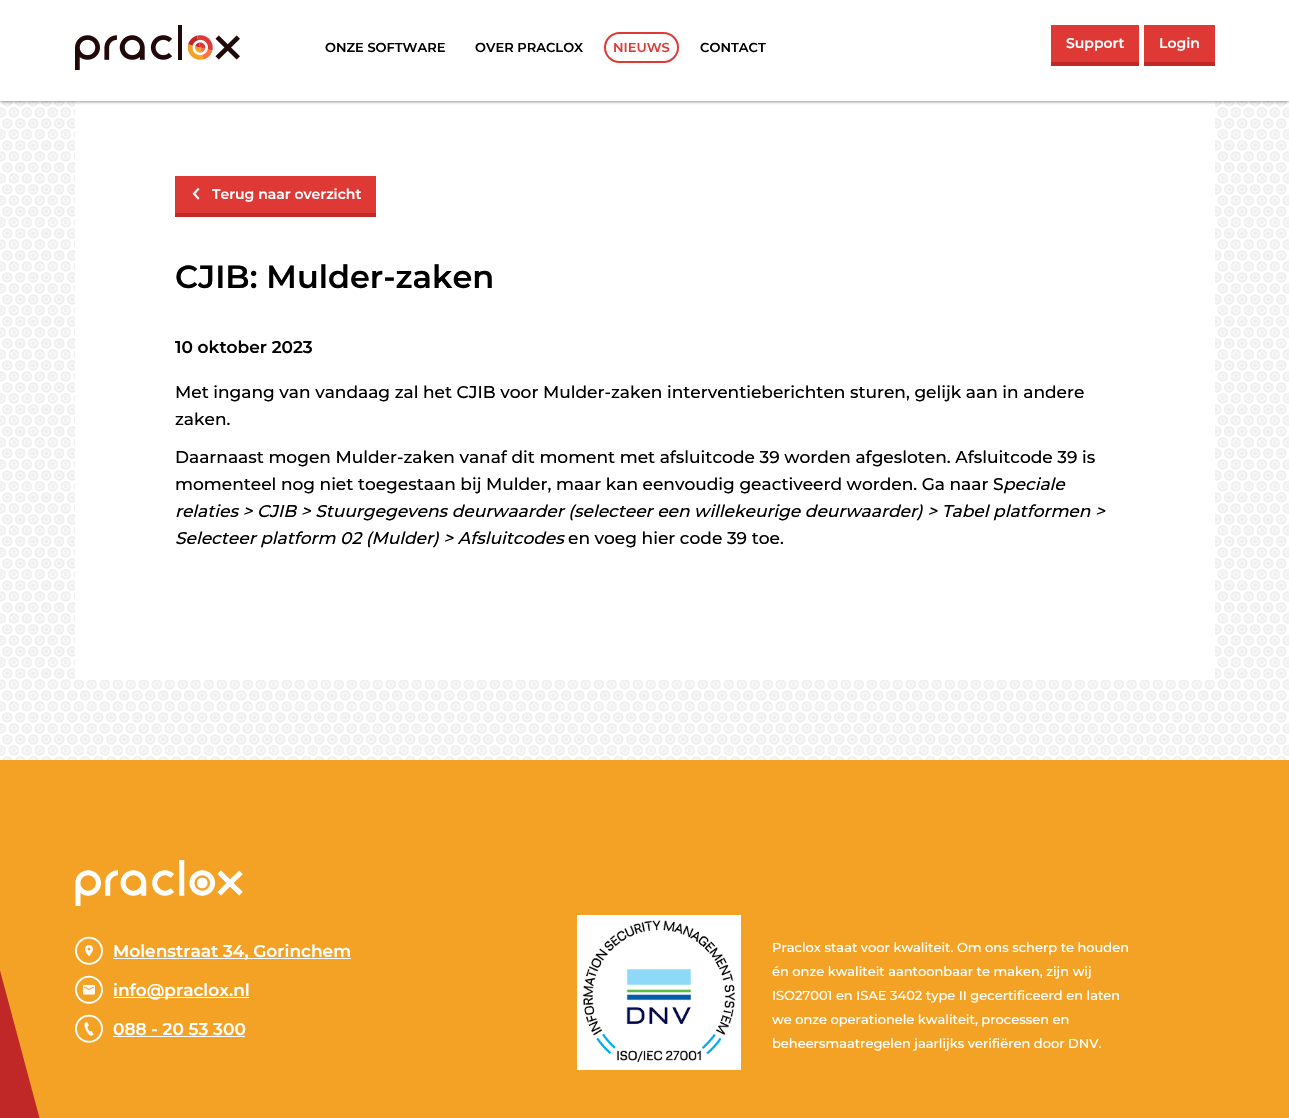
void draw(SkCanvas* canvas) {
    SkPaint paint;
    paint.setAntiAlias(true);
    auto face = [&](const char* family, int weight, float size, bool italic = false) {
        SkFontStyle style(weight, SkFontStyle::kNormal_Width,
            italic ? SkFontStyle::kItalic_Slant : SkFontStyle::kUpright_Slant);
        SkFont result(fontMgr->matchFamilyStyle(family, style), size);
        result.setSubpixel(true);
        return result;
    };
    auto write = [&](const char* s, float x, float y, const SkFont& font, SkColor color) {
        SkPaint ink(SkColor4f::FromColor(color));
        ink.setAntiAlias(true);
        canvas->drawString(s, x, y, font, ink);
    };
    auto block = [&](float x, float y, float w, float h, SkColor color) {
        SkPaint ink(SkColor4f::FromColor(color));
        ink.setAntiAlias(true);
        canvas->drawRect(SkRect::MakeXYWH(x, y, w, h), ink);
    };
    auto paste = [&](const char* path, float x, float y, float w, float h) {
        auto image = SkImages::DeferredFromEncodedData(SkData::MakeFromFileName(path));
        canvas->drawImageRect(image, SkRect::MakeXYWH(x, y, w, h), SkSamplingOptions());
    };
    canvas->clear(SK_ColorWHITE);
    paste("pic2.png", 0, 101, 1289, 659);
    block(75, 101, 1140, 579, SK_ColorWHITE);
    paint.setColor(SkColorSetARGB(128, 50, 50, 50));
    paint.setMaskFilter(SkMaskFilter::MakeBlur(kNormal_SkBlurStyle, 1.5f));
    canvas->drawRect(SkRect::MakeXYWH(0, 1, 1289, 101), paint);
    paint.setMaskFilter(nullptr);
    block(0, 0, 1289, 101, SK_ColorWHITE);
    paste("pic1.png", 75, 25, 165, 45);
    auto kFont1 = face("Montserrat", 100, 13);
    write("ONZE SOFTWARE", 325, 52, kFont1, SK_ColorBLACK);
    write("OVER PRACLOX", 475, 52, kFont1, SK_ColorBLACK);
    paint.setStyle(SkPaint::kStroke_Style);
    paint.setStrokeWidth(2);
    paint.setColor(SkColorSetRGB(223, 57, 53));
    canvas->drawRoundRect(SkRect::MakeXYWH(605, 33, 73, 29), 14.5f, 14.5f, paint);
    write("NIEUWS", 613, 52, kFont1, SkColorSetRGB(223, 57, 53));
    write("CONTACT", 700, 52, kFont1, SK_ColorBLACK);
    block(1051, 62, 88, 4, SkColorSetRGB(192, 40, 40));
    block(1051, 25, 88, 37, SkColorSetRGB(223, 57, 53));
    auto kFont2 = face("Montserrat", 100, 14);
    write("Support", 1066, 48, kFont2, SK_ColorWHITE);
    block(1144, 62, 71, 4, SkColorSetRGB(192, 40, 40));
    block(1144, 25, 71, 37, SkColorSetRGB(223, 57, 53));
    write("Login", 1159, 48, kFont2, SK_ColorWHITE);
    block(175, 213, 201, 4, SkColorSetRGB(192, 40, 40));
    block(175, 176, 201, 37, SkColorSetRGB(223, 57, 53));
    paste("pic3.png", 192, 187, 8, 13);
    write("Terug naar overzicht", 212, 199, kFont2, SK_ColorWHITE);
    auto kFont3 = face("Montserrat", 100, 32);
    write("CJIB: Mulder-zaken", 175, 288, kFont3, SK_ColorBLACK);
    auto kFont4 = face("Montserrat", 100, 17);
    write("10 oktober 2023", 175, 353, kFont4, SK_ColorBLACK);
    auto kFont5 = face("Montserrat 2", 100, 17);
    write("Met ingang van vandaag zal het CJIB voor Mulder-zaken interventieberichten sturen, gelijk aan in andere", 175, 398, kFont5, SK_ColorBLACK);
    write("zaken.", 175, 425, kFont5, SK_ColorBLACK);
    write("Daarnaast mogen Mulder-zaken vanaf dit moment met afsluitcode 39 worden afgesloten. Afsluitcode 39 is", 175, 463, kFont5, SK_ColorBLACK);
    write("momenteel nog niet toegestaan bij Mulder, maar kan eenvoudig geactiveerd worden. Ga naar S", 175, 490, kFont5, SK_ColorBLACK);
    auto kFont6 = face("Montserrat", 100, 17, true);
    write("peciale", 1003, 490, kFont6, SK_ColorBLACK);
    write("relaties > CJIB > Stuurgegevens deurwaarder (selecteer een willekeurige deurwaarder) > Tabel platformen >", 175, 517, kFont6, SK_ColorBLACK);
    write("Selecteer platform 02 (Mulder) > Afsluitcodes", 175, 544, kFont6, SK_ColorBLACK);
    write("en voeg hier code 39 toe.", 568, 544, kFont5, SK_ColorBLACK);
    block(0, 760, 1289, 358, SkColorSetRGB(243, 162, 37));
    paste("pic4.png", 0, 971, 40, 147);
    paste("pic5.png", 75, 860, 168, 46);
    paste("pic6.png", 75, 936, 28, 29);
    block(113, 958, 238, 1, SK_ColorWHITE);
    write("Molenstraat 34, Gorinchem", 113, 957, kFont4, SK_ColorWHITE);
    paste("pic7.png", 75, 975, 28, 29);
    block(113, 997, 136, 1, SK_ColorWHITE);
    write("info@praclox.nl", 113, 996, kFont4, SK_ColorWHITE);
    paste("pic8.png", 75, 1014, 28, 29);
    write("088 - 20 53 300", 113, 1035, kFont4, SK_ColorWHITE);
    block(113, 1036, 132, 1, SK_ColorWHITE);
    paste("pic9.png", 577, 915, 164, 155);
    auto kFont7 = face("Montserrat 2", 100, 13);
    write("Praclox staat voor kwaliteit. Om ons scherp te houden", 772, 952, kFont7, SK_ColorWHITE);
    write("én onze kwaliteit aantoonbaar te maken, zijn wij", 772, 976, kFont7, SK_ColorWHITE);
    write("ISO27001 en ISAE 3402 type II gecertificeerd en laten", 772, 1000, kFont7, SK_ColorWHITE);
    write("we onze operationele kwaliteit, processen en", 772, 1024, kFont7, SK_ColorWHITE);
    write("beheersmaatregelen jaarlijks verifiëren door DNV.", 772, 1048, kFont7, SK_ColorWHITE);
}
